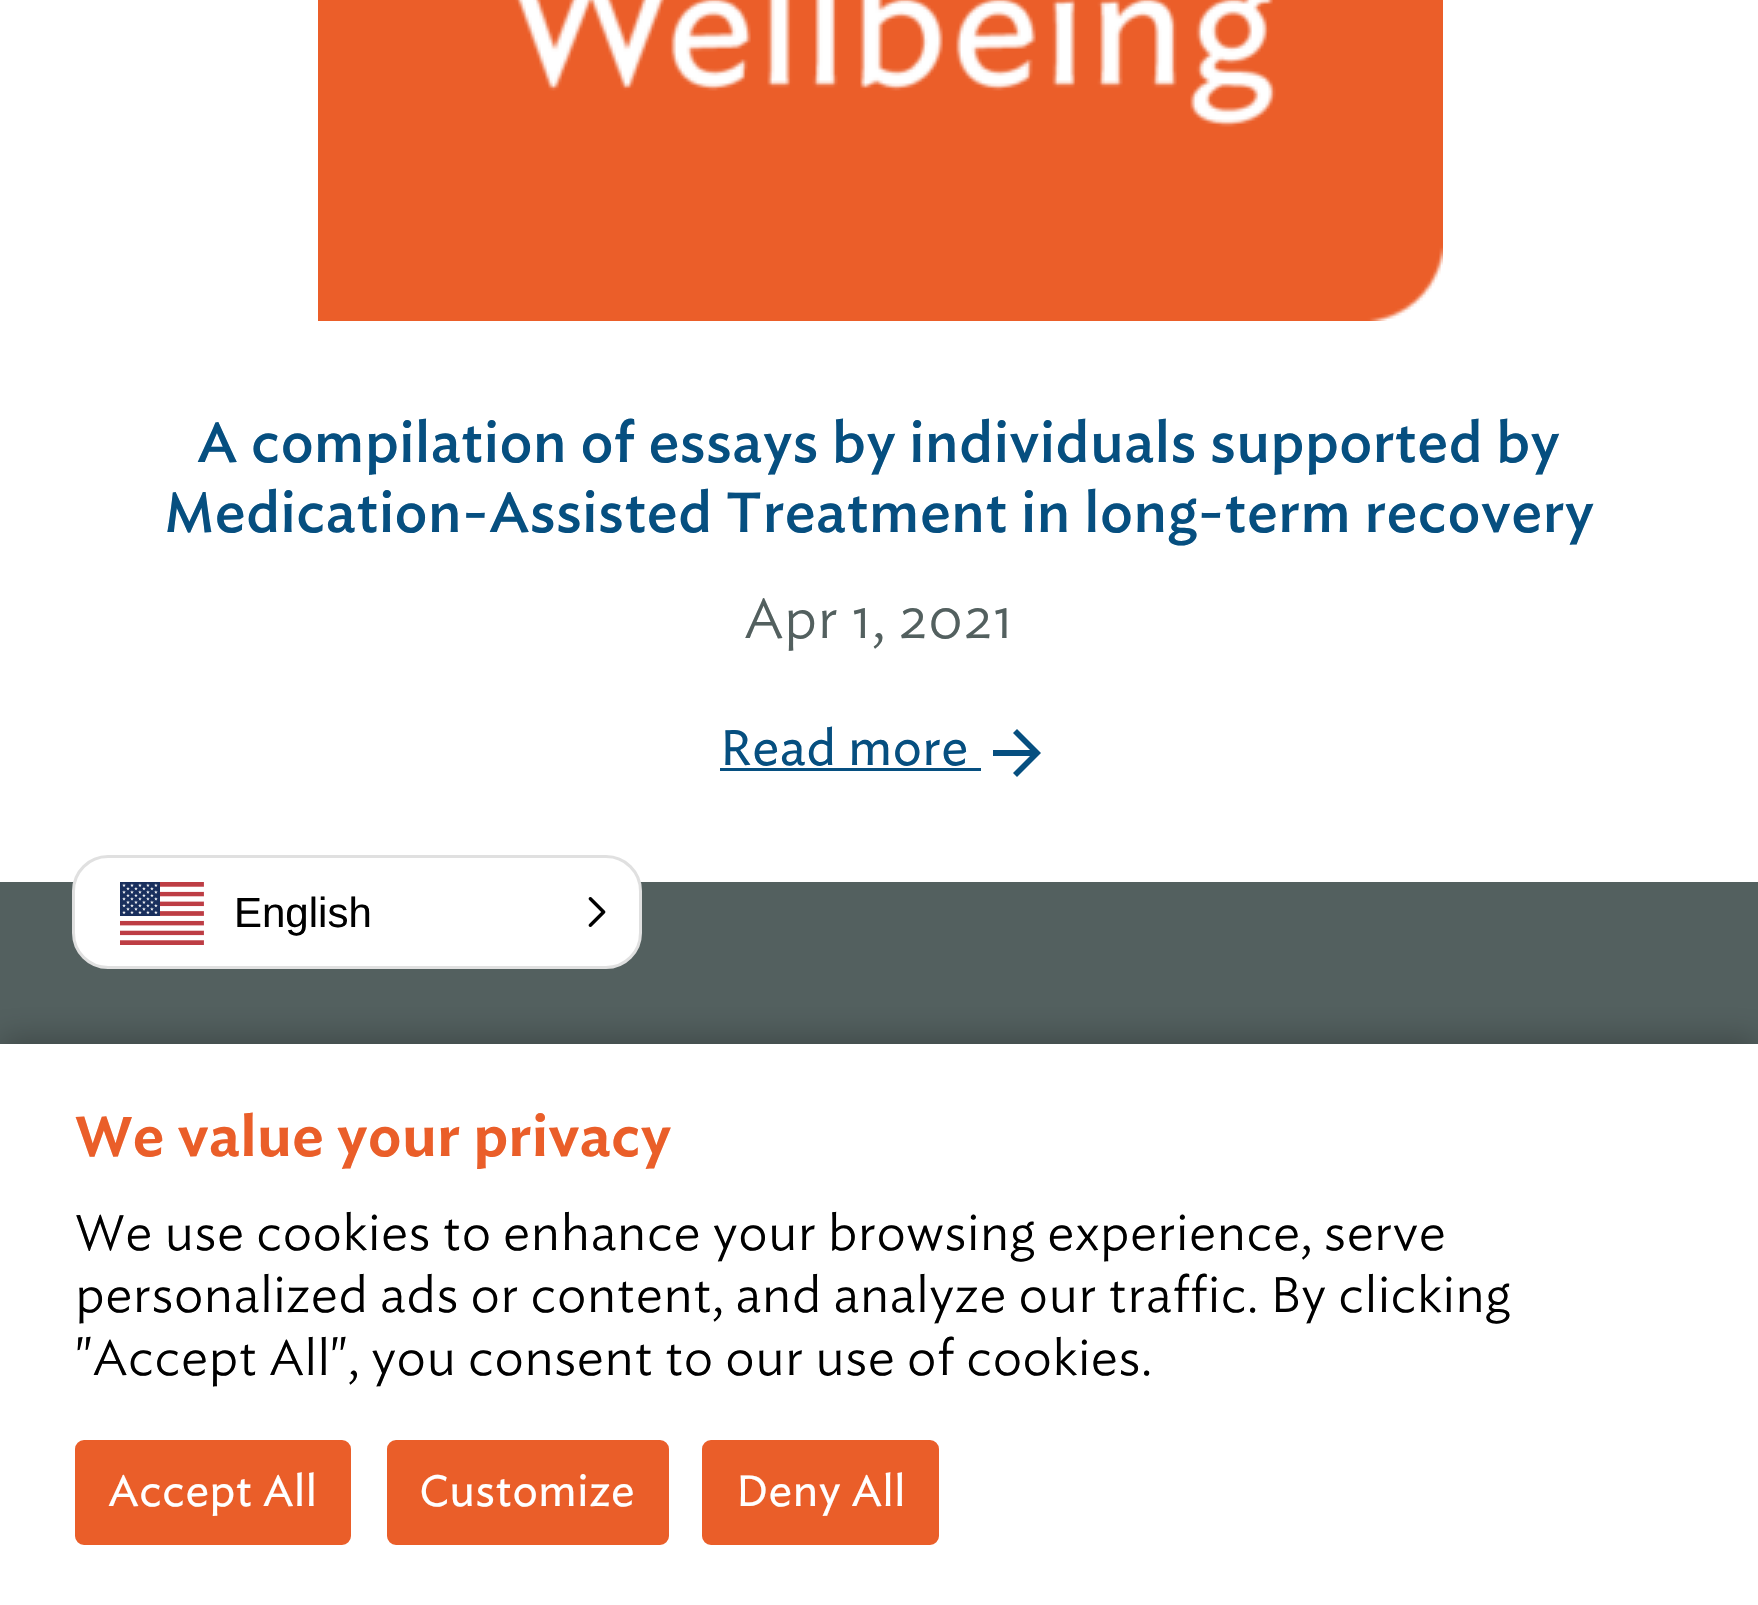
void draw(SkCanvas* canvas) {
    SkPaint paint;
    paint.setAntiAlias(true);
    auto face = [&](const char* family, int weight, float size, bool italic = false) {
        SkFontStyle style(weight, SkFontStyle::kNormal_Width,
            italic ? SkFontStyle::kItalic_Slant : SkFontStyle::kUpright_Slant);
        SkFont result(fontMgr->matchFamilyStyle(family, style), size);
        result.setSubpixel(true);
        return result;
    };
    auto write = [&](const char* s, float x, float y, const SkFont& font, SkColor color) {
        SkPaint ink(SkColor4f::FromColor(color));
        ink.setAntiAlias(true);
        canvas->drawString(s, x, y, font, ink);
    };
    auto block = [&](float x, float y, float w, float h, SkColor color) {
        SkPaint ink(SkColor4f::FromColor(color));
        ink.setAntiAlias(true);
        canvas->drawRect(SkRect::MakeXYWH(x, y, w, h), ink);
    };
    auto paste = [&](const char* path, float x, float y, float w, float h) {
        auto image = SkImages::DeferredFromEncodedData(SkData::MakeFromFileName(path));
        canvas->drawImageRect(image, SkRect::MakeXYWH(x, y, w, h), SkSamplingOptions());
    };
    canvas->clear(SK_ColorWHITE);
    paste("pic1.png", 318, 0, 1125, 321);
    auto kFont1 = face("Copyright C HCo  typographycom", 300, 54);
    write("A compilation of essays by individuals supported by", 197, 462, kFont1, SkColorSetRGB(6, 79, 128));
    write("Medication-Assisted Treatment in long-term recovery", 164, 532, kFont1, SkColorSetRGB(6, 79, 128));
    auto kFont2 = face("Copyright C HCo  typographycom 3", 300, 54);
    write("Apr 1, 2021", 744, 638, kFont2, SkColorSetRGB(83, 96, 95));
    auto kFont3 = face("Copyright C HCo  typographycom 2", 300, 48);
    write("Read more", 720, 765, kFont3, SkColorSetRGB(6, 79, 128));
    block(720, 768, 261, 3, SkColorSetRGB(6, 79, 128));
    paint.setColor(SkColorSetRGB(6, 79, 128));
    canvas->drawPath(SkPathBuilder(SkPathFillType::kEvenOdd).moveTo(1017, 729).lineTo(1013, 733).lineTo(1030, 750).lineTo(993, 750).lineTo(993, 756).lineTo(1030, 756).lineTo(1013, 773).lineTo(1017, 777).lineTo(1041, 753).close().detach(), paint);
    block(0, 882, 1758, 162, SkColorSetRGB(83, 96, 95));
    paint.setColor(SK_ColorWHITE);
    canvas->drawRoundRect(SkRect::MakeXYWH(73.5f, 856.5f, 567, 111), 34.5f, 34.5f, paint);
    paint.setStyle(SkPaint::kStroke_Style);
    paint.setStrokeWidth(3);
    paint.setColor(SkColorSetRGB(224, 224, 224));
    canvas->drawRoundRect(SkRect::MakeXYWH(73.5f, 856.5f, 567, 111), 34.5f, 34.5f, paint);
    paste("pic2.png", 120, 882, 84, 63);
    auto kFont4 = face("Liberation Sans", 400, 42);
    write("English", 234, 927, kFont4, SK_ColorBLACK);
    paste("pic3.png", 588, 897, 18, 30);
    paint.setStyle(SkPaint::kFill_Style);
    paint.setColor(SkColorSetARGB(64, 0, 0, 0));
    paint.setMaskFilter(SkMaskFilter::MakeBlur(kNormal_SkBlurStyle, 15));
    canvas->drawRect(SkRect::MakeXYWH(0, 1038, 1758, 561), paint);
    paint.setMaskFilter(nullptr);
    block(0, 1044, 1758, 561, SK_ColorWHITE);
    auto kFont5 = face("Copyright C HCo  typographycom", 400, 54);
    write("We value your privacy", 75, 1156, kFont5, SkColorSetRGB(234, 94, 41));
    auto kFont6 = face("Copyright C HCo  typographycom 3", 300, 48);
    write("We use cookies to enhance your browsing experience, serve", 75, 1250, kFont6, SK_ColorBLACK);
    write("personalized ads or content, and analyze our traffic. By clicking", 75, 1312, kFont6, SK_ColorBLACK);
    write("\"Accept All\", you consent to our use of cookies.", 75, 1375, kFont6, SK_ColorBLACK);
    paint.setColor(SkColorSetRGB(234, 94, 41));
    canvas->drawRoundRect(SkRect::MakeXYWH(76.5f, 1441.5f, 273, 102), 7.5f, 7.5f, paint);
    paint.setStyle(SkPaint::kStroke_Style);
    canvas->drawRoundRect(SkRect::MakeXYWH(76.5f, 1441.5f, 273, 102), 7.5f, 7.5f, paint);
    auto kFont7 = face("Copyright C HCo  typographycom 2", 300, 42);
    write("Accept All", 108, 1506, kFont7, SK_ColorWHITE);
    paint.setStyle(SkPaint::kFill_Style);
    canvas->drawRoundRect(SkRect::MakeXYWH(388.5f, 1441.5f, 279, 102), 7.5f, 7.5f, paint);
    paint.setStyle(SkPaint::kStroke_Style);
    canvas->drawRoundRect(SkRect::MakeXYWH(388.5f, 1441.5f, 279, 102), 7.5f, 7.5f, paint);
    write("Customize", 419, 1506, kFont7, SK_ColorWHITE);
    paint.setStyle(SkPaint::kFill_Style);
    canvas->drawRoundRect(SkRect::MakeXYWH(703.5f, 1441.5f, 234, 102), 7.5f, 7.5f, paint);
    paint.setStyle(SkPaint::kStroke_Style);
    canvas->drawRoundRect(SkRect::MakeXYWH(703.5f, 1441.5f, 234, 102), 7.5f, 7.5f, paint);
    write("Deny All", 736, 1506, kFont7, SK_ColorWHITE);
}
